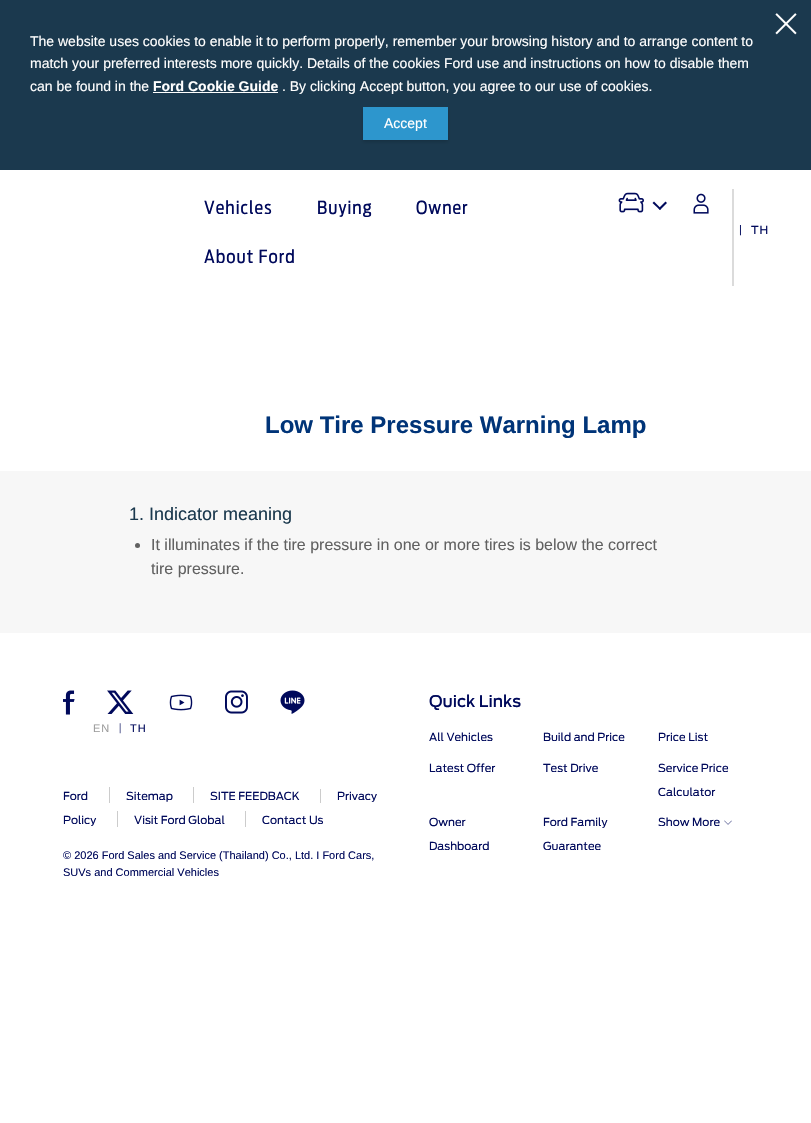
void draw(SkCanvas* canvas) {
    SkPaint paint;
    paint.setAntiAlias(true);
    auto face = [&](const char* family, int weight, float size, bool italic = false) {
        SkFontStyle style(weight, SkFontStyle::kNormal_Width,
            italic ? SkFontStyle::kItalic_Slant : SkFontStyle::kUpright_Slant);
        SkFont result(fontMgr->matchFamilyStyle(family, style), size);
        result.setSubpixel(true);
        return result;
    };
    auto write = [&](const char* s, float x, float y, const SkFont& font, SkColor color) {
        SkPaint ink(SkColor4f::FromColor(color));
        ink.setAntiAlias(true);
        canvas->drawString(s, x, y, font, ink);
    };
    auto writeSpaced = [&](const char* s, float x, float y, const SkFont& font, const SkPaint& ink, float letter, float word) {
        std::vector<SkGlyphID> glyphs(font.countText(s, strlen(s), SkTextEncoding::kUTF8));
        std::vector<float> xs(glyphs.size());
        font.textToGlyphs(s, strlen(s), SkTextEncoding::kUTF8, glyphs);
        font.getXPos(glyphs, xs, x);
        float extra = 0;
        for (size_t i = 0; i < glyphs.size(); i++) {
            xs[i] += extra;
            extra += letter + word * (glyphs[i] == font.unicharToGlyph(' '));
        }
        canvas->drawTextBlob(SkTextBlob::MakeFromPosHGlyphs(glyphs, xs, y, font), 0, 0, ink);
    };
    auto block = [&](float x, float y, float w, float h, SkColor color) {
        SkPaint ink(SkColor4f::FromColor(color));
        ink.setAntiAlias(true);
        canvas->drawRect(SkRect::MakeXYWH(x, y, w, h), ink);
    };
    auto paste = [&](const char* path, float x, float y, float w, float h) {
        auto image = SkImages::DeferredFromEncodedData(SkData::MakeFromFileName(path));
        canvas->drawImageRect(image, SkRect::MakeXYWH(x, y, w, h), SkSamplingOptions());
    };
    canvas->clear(SK_ColorWHITE);
    block(0, 0, 811, 170, SkColorSetRGB(27, 57, 78));
    paste("pic1.png", 775, 13, 22, 22);
    auto kFont1 = face("Liberation Sans", 400, 14);
    write("The website uses cookies to enable it to perform properly, remember your browsing history and to arrange content to", 30, 46, kFont1, SK_ColorWHITE);
    write("match your preferred interests more quickly. Details of the cookies Ford use and instructions on how to disable them", 30, 68, kFont1, SK_ColorWHITE);
    write("can be found in the", 30, 91, kFont1, SK_ColorWHITE);
    auto kFont2 = face("Liberation Sans", 700, 14);
    write("Ford Cookie Guide", 153, 91, kFont2, SK_ColorWHITE);
    block(153, 92, 125, 1, SK_ColorWHITE);
    write(". By clicking Accept button, you agree to our use of cookies.", 282, 91, kFont1, SK_ColorWHITE);
    paint.setColor(SkColorSetARGB(38, 0, 0, 0));
    paint.setMaskFilter(SkMaskFilter::MakeBlur(kNormal_SkBlurStyle, 1.5f));
    canvas->drawRect(SkRect::MakeXYWH(363, 109, 85, 33), paint);
    paint.setMaskFilter(nullptr);
    block(363, 107, 85, 33, SkColorSetRGB(45, 150, 205));
    write("Accept", 384, 128, kFont1, SK_ColorWHITE);
    auto kFont3 = face("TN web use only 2", 400, 18);
    paint.setColor(SkColorSetRGB(0, 9, 91));
    writeSpaced("Vehicles", 204, 214, kFont3, paint, 1, 0);
    writeSpaced("Buying", 317, 214, kFont3, paint, 1, 0);
    writeSpaced("Owner", 416, 214, kFont3, paint, 1, 0);
    writeSpaced("About Ford", 204, 263, kFont3, paint, 1, 0);
    paste("pic2.png", 618, 192, 26, 21);
    canvas->drawPath(SkPathBuilder().moveTo(665.5f, 201.5f).lineTo(667, 203).lineTo(660, 210).lineTo(658.5f, 208.5f).close().detach(), paint);
    canvas->drawPath(SkPathBuilder().moveTo(654, 201.5f).lineTo(661, 208.5f).lineTo(660, 210).lineTo(652.5f, 203).close().detach(), paint);
    block(732, 189, 2, 97, SkColorSetRGB(219, 219, 219));
    paste("pic3.png", 693, 193, 16, 21);
    auto kFont4 = face("Liberation Sans", 400, 11);
    write("|", 739, 233, kFont4, SkColorSetRGB(0, 9, 91));
    auto kFont5 = face("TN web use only", 400, 11);
    writeSpaced("TH", 751, 234, kFont5, paint, 1, 0);
    auto kFont6 = face("Liberation Sans", 700, 24);
    write("Low Tire Pressure Warning Lamp", 265, 433, kFont6, SkColorSetRGB(0, 52, 120));
    block(0, 471, 811, 162, SkColorSetRGB(247, 247, 247));
    auto kFont7 = face("Liberation Sans", 400, 18);
    write("1. Indicator meaning", 129, 520, kFont7, SkColorSetRGB(27, 57, 78));
    paint.setColor(SkColorSetRGB(97, 97, 97));
    canvas->drawCircle(137.5f, 545.5f, 2.5f, paint);
    auto kFont8 = face("Liberation Sans", 400, 16);
    write("It illuminates if the tire pressure in one or more tires is below the correct", 151, 550, kFont8, SkColorSetRGB(97, 97, 97));
    write("tire pressure.", 151, 574, kFont8, SkColorSetRGB(97, 97, 97));
    paste("pic4.png", 63, 690, 12, 25);
    paste("pic5.png", 107, 690, 27, 24);
    paste("pic6.png", 169, 694, 24, 17);
    paste("pic7.png", 225, 690, 23, 24);
    paste("pic8.png", 280, 690, 25, 24);
    paint.setColor(SkColorSetRGB(156, 156, 156));
    writeSpaced("EN", 93, 732, kFont4, paint, 1, 0);
    auto kFont9 = face("Liberation Serif", 400, 11);
    write("|", 119, 731, kFont9, SkColorSetRGB(0, 9, 91));
    paint.setColor(SkColorSetRGB(0, 9, 91));
    writeSpaced("TH", 130, 732, kFont4, paint, 1, 0);
    write("Ford", 63, 800, kFont5, SkColorSetRGB(0, 9, 91));
    write("Sitemap", 126, 800, kFont5, SkColorSetRGB(0, 9, 91));
    block(109, 787, 1, 16, SkColorSetRGB(204, 204, 204));
    write("SITE FEEDBACK", 210, 800, kFont5, SkColorSetRGB(0, 9, 91));
    block(193, 787, 1, 16, SkColorSetRGB(204, 204, 204));
    write("Privacy", 337, 800, kFont5, SkColorSetRGB(0, 9, 91));
    block(320, 789, 1, 14, SkColorSetRGB(204, 204, 204));
    write("Policy", 63, 824, kFont5, SkColorSetRGB(0, 9, 91));
    write("Visit Ford Global", 134, 824, kFont5, SkColorSetRGB(0, 9, 91));
    block(117, 811, 1, 16, SkColorSetRGB(204, 204, 204));
    write("Contact Us", 262, 824, kFont5, SkColorSetRGB(0, 9, 91));
    block(245, 811, 1, 16, SkColorSetRGB(204, 204, 204));
    write("© 2026 Ford Sales and Service (Thailand) Co., Ltd. I Ford Cars,", 63, 859, kFont4, SkColorSetRGB(0, 9, 91));
    write("SUVs and Commercial Vehicles", 63, 876, kFont4, SkColorSetRGB(0, 9, 91));
    auto kFont10 = face("TN web use only", 500, 16);
    write("Quick Links", 429, 707, kFont10, SkColorSetRGB(0, 9, 91));
    write("All Vehicles", 429, 741, kFont5, SkColorSetRGB(0, 9, 91));
    write("Build and Price", 543, 741, kFont5, SkColorSetRGB(0, 9, 91));
    write("Price List", 658, 741, kFont5, SkColorSetRGB(0, 9, 91));
    write("Latest Offer", 429, 772, kFont5, SkColorSetRGB(0, 9, 91));
    write("Test Drive", 543, 772, kFont5, SkColorSetRGB(0, 9, 91));
    write("Service Price", 658, 772, kFont5, SkColorSetRGB(0, 9, 91));
    write("Calculator", 658, 796, kFont5, SkColorSetRGB(0, 9, 91));
    write("Owner", 429, 826, kFont5, SkColorSetRGB(0, 9, 91));
    write("Dashboard", 429, 850, kFont5, SkColorSetRGB(0, 9, 91));
    write("Ford Family", 543, 826, kFont5, SkColorSetRGB(0, 9, 91));
    write("Guarantee", 543, 850, kFont5, SkColorSetRGB(0, 9, 91));
    write("Show More", 658, 826, kFont5, SkColorSetRGB(0, 9, 91));
    paste("pic9.png", 724, 820, 8, 5);
}
